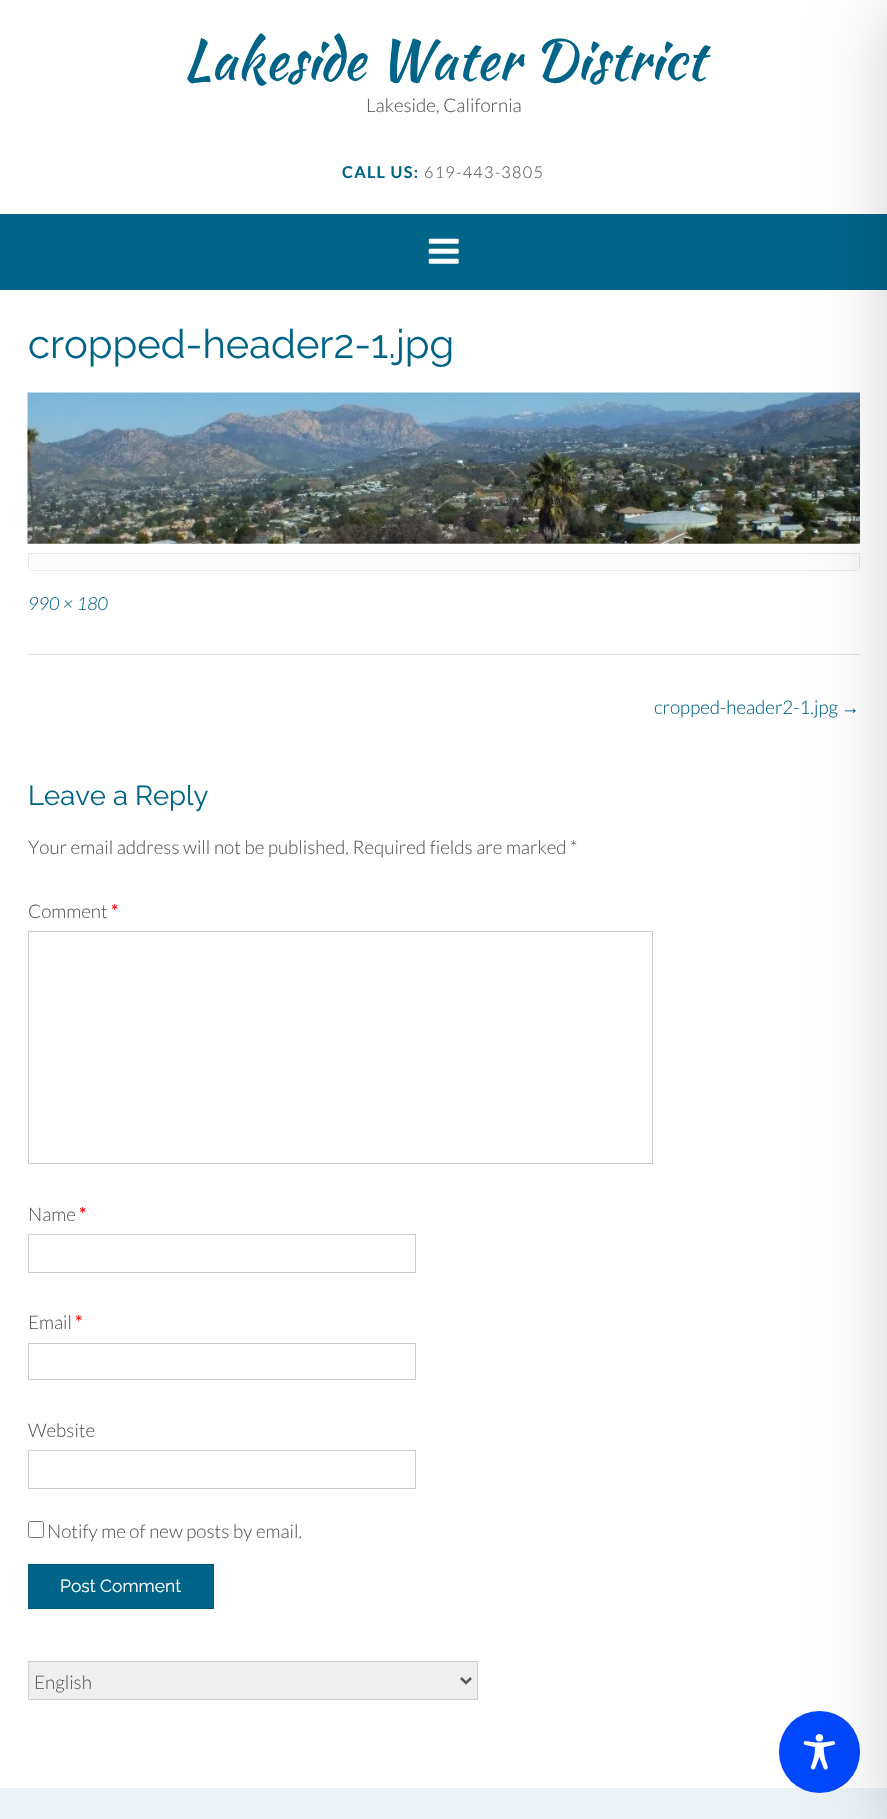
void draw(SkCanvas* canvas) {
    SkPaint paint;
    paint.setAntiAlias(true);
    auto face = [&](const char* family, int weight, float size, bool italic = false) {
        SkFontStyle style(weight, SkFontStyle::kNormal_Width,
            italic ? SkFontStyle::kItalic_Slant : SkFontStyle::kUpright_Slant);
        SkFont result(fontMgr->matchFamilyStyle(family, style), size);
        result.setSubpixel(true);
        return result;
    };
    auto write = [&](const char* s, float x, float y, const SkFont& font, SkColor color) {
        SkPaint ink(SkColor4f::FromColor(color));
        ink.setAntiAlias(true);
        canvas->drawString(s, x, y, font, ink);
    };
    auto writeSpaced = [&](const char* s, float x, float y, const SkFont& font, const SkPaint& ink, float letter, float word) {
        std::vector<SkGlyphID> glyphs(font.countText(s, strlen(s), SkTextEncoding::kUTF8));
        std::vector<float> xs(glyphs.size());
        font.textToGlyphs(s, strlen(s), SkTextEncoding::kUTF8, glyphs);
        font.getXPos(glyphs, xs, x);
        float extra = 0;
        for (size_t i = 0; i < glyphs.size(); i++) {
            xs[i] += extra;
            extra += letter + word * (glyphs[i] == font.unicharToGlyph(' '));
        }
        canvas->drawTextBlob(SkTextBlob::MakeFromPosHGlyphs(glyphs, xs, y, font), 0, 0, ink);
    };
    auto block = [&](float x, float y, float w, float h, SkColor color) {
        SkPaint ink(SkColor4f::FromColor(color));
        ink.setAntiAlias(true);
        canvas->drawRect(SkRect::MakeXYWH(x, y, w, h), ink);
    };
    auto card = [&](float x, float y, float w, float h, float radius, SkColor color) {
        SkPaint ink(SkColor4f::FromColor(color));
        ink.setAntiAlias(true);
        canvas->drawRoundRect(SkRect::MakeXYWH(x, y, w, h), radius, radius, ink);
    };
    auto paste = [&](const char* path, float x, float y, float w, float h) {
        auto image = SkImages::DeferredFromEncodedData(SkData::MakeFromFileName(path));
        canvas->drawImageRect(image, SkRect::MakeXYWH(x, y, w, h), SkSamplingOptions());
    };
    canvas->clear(SK_ColorWHITE);
    auto kFont1 = face("Kaushan Script", 400, 55);
    write("Lakeside Water District", 183, 79, kFont1, SkColorSetRGB(0, 100, 137));
    auto kFont2 = face("Lato", 300, 18.75f);
    write("Lakeside, California", 366, 112, kFont2, SkColorSetRGB(88, 88, 90));
    auto kFont3 = face("Lato", 700, 16.25f);
    paint.setColor(SkColorSetRGB(0, 100, 137));
    writeSpaced("CALL US:", 342, 178, kFont3, paint, 1.25f, 0);
    auto kFont4 = face("Lato", 300, 16.25f);
    paint.setColor(SkColorSetRGB(88, 88, 90));
    writeSpaced("619-443-3805", 424, 178, kFont4, paint, 1.25f, 0);
    block(0, 214, 887, 76, SkColorSetRGB(0, 100, 137));
    paste("pic1.png", 428, 238, 31, 26);
    block(28, 654, 832, 1, SkColorSetRGB(224, 224, 224));
    paste("pic2.png", 27, 392, 833, 152);
    paint.setColor(SkColorSetRGB(252, 252, 252));
    canvas->drawPath(SkPathBuilder().moveTo(28.5f, 553.5f).lineTo(859.5f, 553.5f).lineTo(859.5f, 567).cubicTo(859.5f, 569, 858, 570.5f, 856, 570.5f).lineTo(32, 570.5f).cubicTo(30, 570.5f, 28.5f, 569, 28.5f, 567).close().detach(), paint);
    paint.setStyle(SkPaint::kStroke_Style);
    paint.setStrokeWidth(1);
    paint.setColor(SkColorSetRGB(232, 232, 232));
    canvas->drawPath(SkPathBuilder().moveTo(28.5f, 553.5f).lineTo(859.5f, 553.5f).lineTo(859.5f, 567).cubicTo(859.5f, 569, 858, 570.5f, 856, 570.5f).lineTo(32, 570.5f).cubicTo(30, 570.5f, 28.5f, 569, 28.5f, 567).close().detach(), paint);
    block(0, 1788, 887, 31, SkColorSetRGB(234, 241, 247));
    card(779, 1711, 81, 82, 40.5f, SkColorSetRGB(0, 72, 254));
    paste("pic3.png", 803, 1734, 32, 36);
    paint.setStyle(SkPaint::kFill_Style);
    paint.setColor(SkColorSetARGB(51, 0, 0, 0));
    paint.setMaskFilter(SkMaskFilter::MakeBlur(kNormal_SkBlurStyle, 37.5f));
    canvas->drawRect(SkRect::MakeXYWH(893, 13, 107, 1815), paint);
    paint.setMaskFilter(nullptr);
    auto kFont5 = face("Raleway", 400, 40);
    write("cropped-header2-1.jpg", 28, 358, kFont5, SkColorSetRGB(0, 100, 137));
    auto kFont6 = face("Lato", 300, 18, true);
    write("990 × 180", 28, 610, kFont6, SkColorSetRGB(0, 100, 137));
    write("cropped-header2-1.jpg", 654, 714, kFont2, SkColorSetRGB(0, 100, 137));
    auto kFont7 = face("Liberation Sans", 400, 18.75f);
    write("→", 841, 714, kFont7, SkColorSetRGB(0, 100, 137));
    auto kFont8 = face("Raleway", 400, 27.5f);
    write("Leave a Reply", 28, 805, kFont8, SkColorSetRGB(0, 100, 137));
    write("Your email address will not be published. Required fields are marked *", 28, 854, kFont2, SkColorSetRGB(88, 88, 90));
    write("Comment", 28, 918, kFont2, SkColorSetRGB(88, 88, 90));
    auto kFont9 = face("Lato", 400, 18.75f);
    write("*", 111, 918, kFont9, SkColorSetRGB(255, 0, 0));
    paint.setStyle(SkPaint::kStroke_Style);
    paint.setColor(SkColorSetRGB(204, 204, 204));
    canvas->drawRect(SkRect::MakeXYWH(28.5f, 931.5f, 624, 232), paint);
    write("Name", 28, 1221, kFont2, SkColorSetRGB(88, 88, 90));
    write("*", 79, 1221, kFont9, SkColorSetRGB(255, 0, 0));
    canvas->drawRect(SkRect::MakeXYWH(28.5f, 1234.5f, 387, 38), paint);
    write("Email", 28, 1329, kFont2, SkColorSetRGB(88, 88, 90));
    write("*", 75, 1329, kFont9, SkColorSetRGB(255, 0, 0));
    canvas->drawRect(SkRect::MakeXYWH(28.5f, 1343.5f, 387, 36), paint);
    write("Website", 28, 1437, kFont2, SkColorSetRGB(88, 88, 90));
    canvas->drawRect(SkRect::MakeXYWH(28.5f, 1450.5f, 387, 38), paint);
    paint.setColor(SkColorSetRGB(118, 118, 118));
    canvas->drawRoundRect(SkRect::MakeXYWH(28.5f, 1521.5f, 15, 16), 2, 2, paint);
    write("Notify me of new posts by email.", 47, 1538, kFont2, SkColorSetRGB(88, 88, 90));
    paint.setStyle(SkPaint::kFill_Style);
    paint.setColor(SkColorSetRGB(0, 100, 137));
    canvas->drawRect(SkRect::MakeXYWH(28.5f, 1564.5f, 185, 44), paint);
    paint.setStyle(SkPaint::kStroke_Style);
    paint.setColor(SkColorSetRGB(0, 86, 118));
    canvas->drawRect(SkRect::MakeXYWH(28.5f, 1564.5f, 185, 44), paint);
    auto kFont10 = face("Raleway", 400, 17.5f);
    write("Post Comment", 60, 1592, kFont10, SK_ColorWHITE);
    paint.setStyle(SkPaint::kFill_Style);
    paint.setColor(SkColorSetRGB(239, 239, 239));
    canvas->drawRect(SkRect::MakeXYWH(28.5f, 1661.5f, 449, 38), paint);
    paint.setStyle(SkPaint::kStroke_Style);
    paint.setColor(SkColorSetRGB(204, 204, 204));
    canvas->drawRect(SkRect::MakeXYWH(28.5f, 1661.5f, 449, 38), paint);
    paint.setStrokeWidth(2.5f);
    paint.setColor(SkColorSetRGB(88, 88, 90));
    canvas->drawPath(SkPathBuilder().moveTo(461, 1678).lineTo(466, 1683).lineTo(471, 1678).detach(), paint);
    write("English", 34, 1689, kFont2, SkColorSetRGB(88, 88, 90));
}
